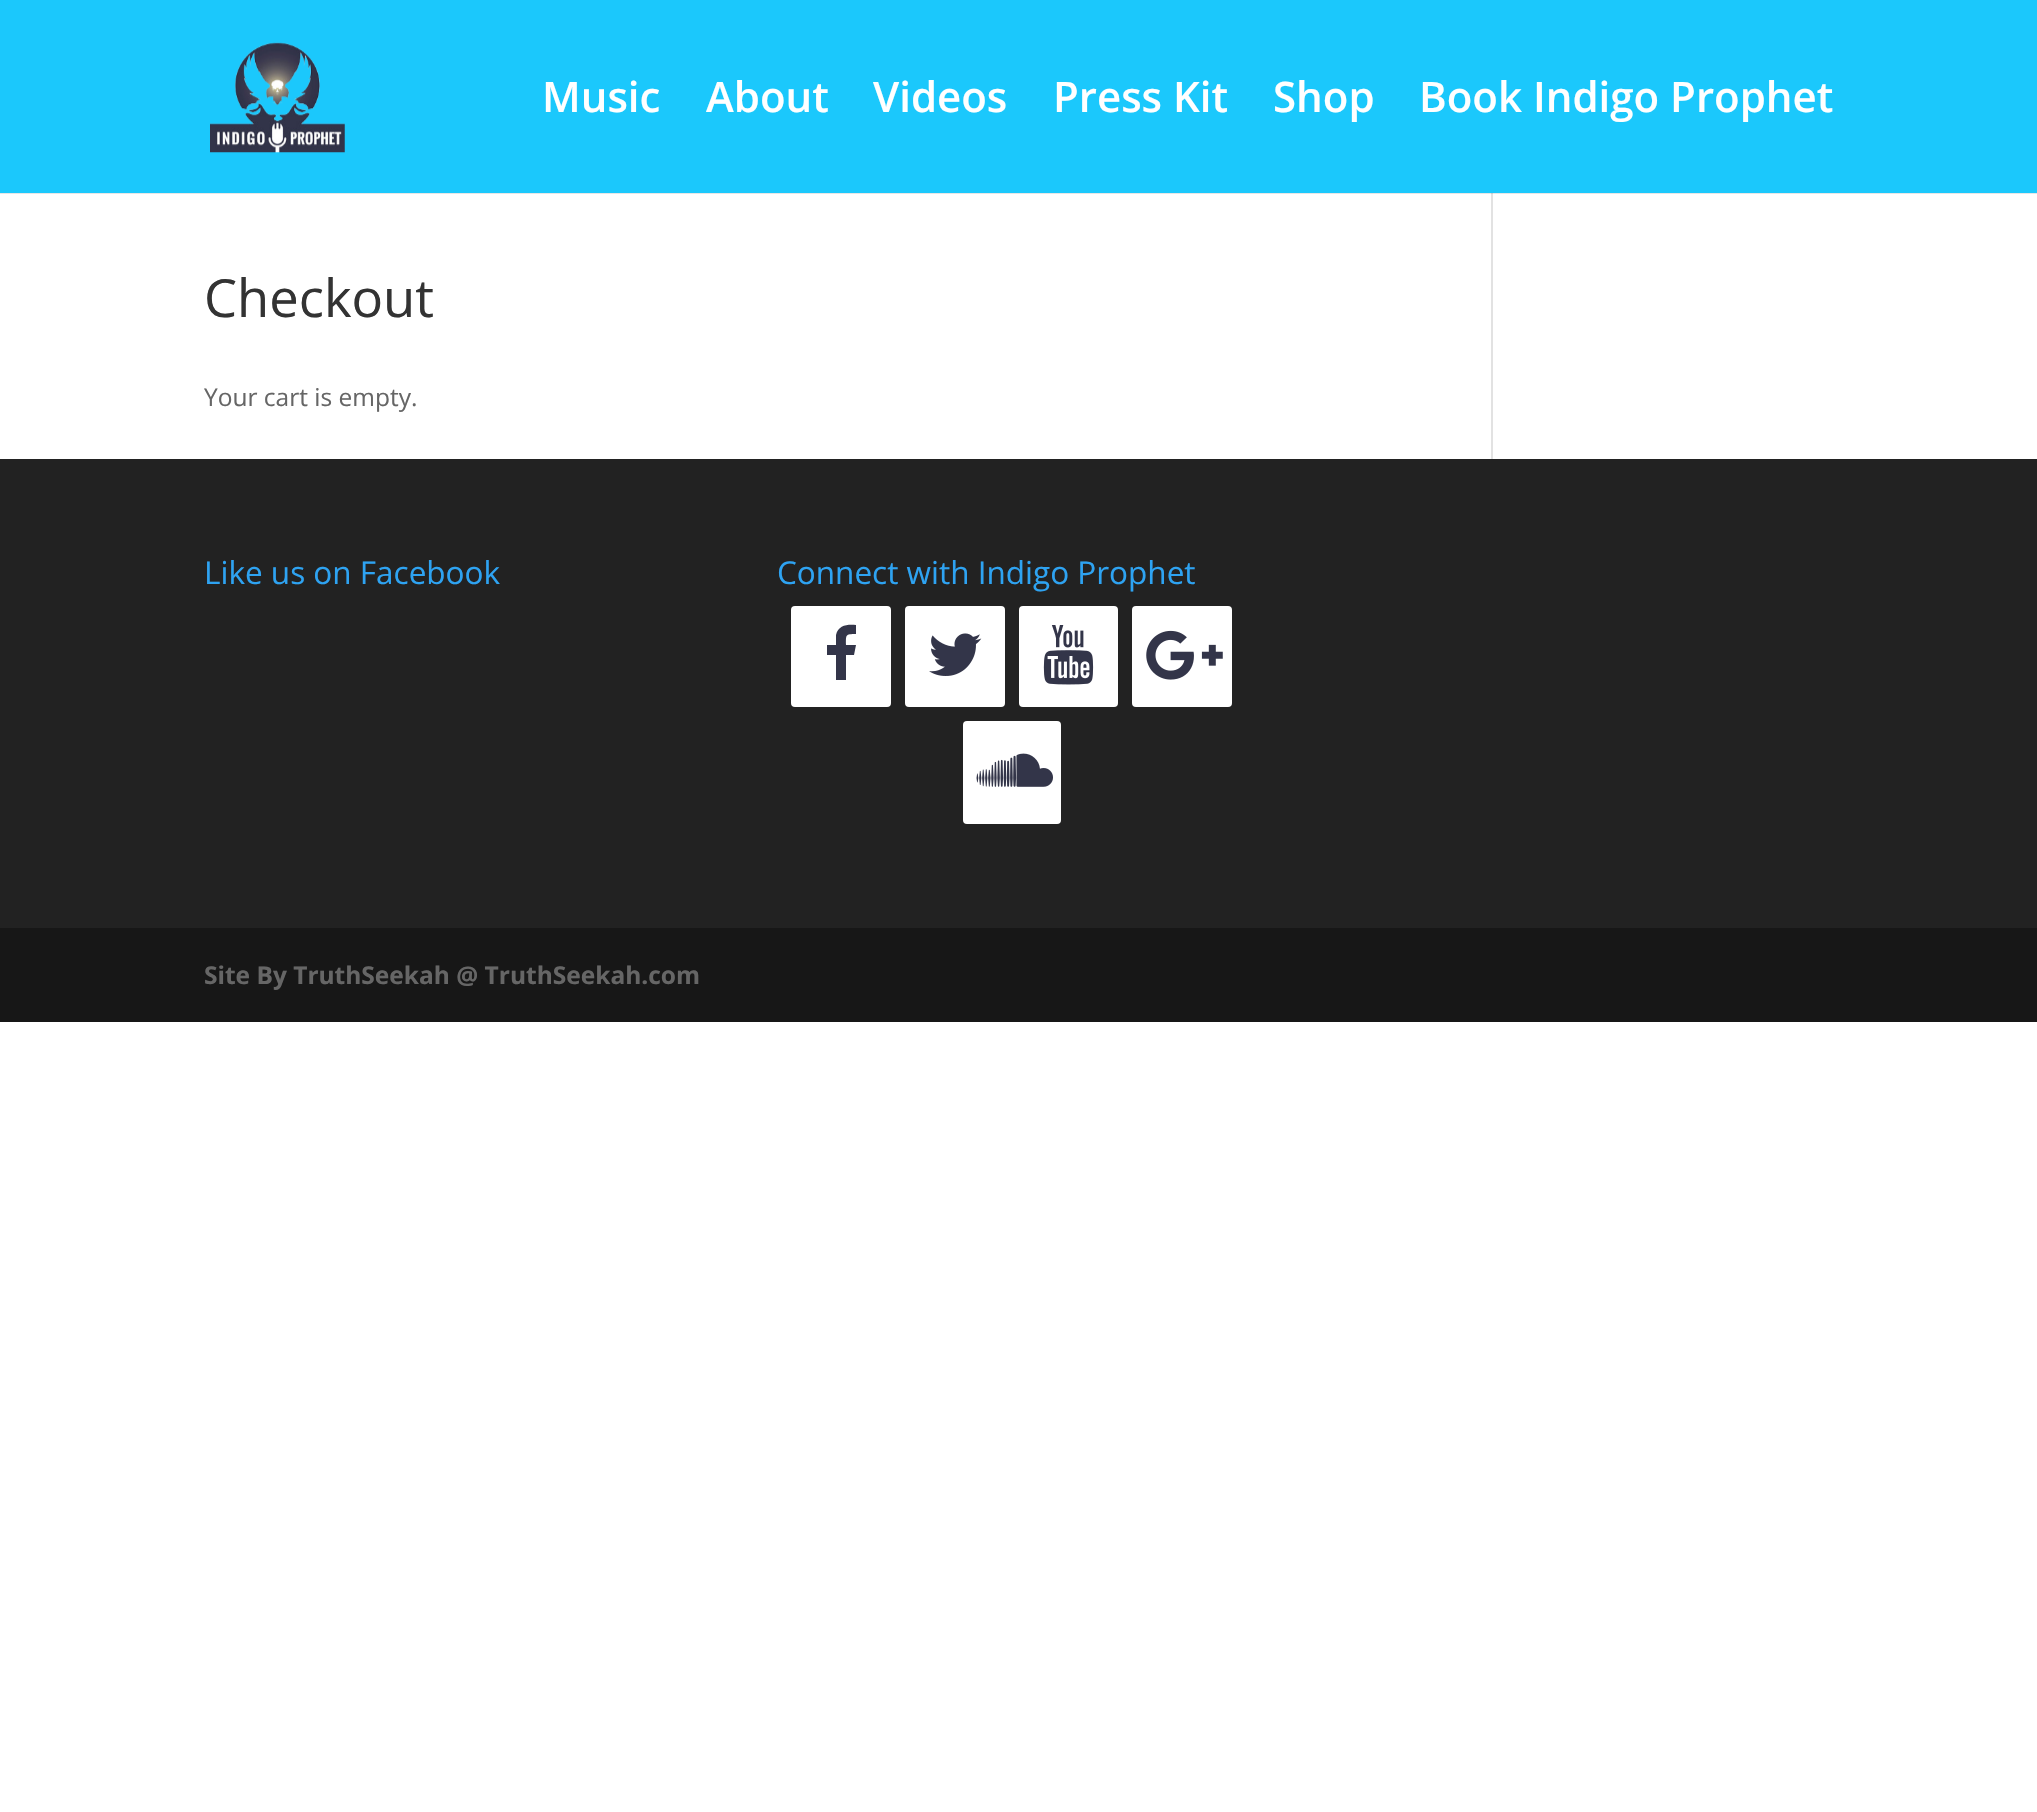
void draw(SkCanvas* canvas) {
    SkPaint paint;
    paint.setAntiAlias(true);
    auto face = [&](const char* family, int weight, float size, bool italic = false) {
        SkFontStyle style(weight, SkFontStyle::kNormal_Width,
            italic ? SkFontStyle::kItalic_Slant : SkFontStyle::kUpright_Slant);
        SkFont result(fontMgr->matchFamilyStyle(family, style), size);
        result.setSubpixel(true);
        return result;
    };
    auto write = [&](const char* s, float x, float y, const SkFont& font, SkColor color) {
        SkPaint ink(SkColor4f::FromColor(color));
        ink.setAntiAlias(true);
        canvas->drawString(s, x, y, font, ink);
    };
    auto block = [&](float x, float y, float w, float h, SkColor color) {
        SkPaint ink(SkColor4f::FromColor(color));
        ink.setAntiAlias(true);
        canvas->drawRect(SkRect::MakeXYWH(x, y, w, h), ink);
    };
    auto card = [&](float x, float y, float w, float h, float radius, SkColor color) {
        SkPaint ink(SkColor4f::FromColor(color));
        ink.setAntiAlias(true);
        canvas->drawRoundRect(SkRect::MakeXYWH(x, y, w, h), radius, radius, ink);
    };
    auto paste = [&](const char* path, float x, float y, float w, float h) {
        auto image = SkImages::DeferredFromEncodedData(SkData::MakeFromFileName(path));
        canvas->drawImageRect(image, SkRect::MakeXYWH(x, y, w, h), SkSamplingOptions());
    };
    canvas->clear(SK_ColorWHITE);
    block(0, 193, 2037, 1, SkColorSetRGB(230, 230, 230));
    block(0, 0, 2037, 193, SkColorSetRGB(27, 200, 252));
    paste("pic1.png", 210, 42, 135, 111);
    auto kFont1 = face("Open Sans", 600, 42);
    write("Music", 542, 112, kFont1, SK_ColorWHITE);
    write("About", 706, 112, kFont1, SK_ColorWHITE);
    write("Videos", 873, 112, kFont1, SK_ColorWHITE);
    write("Press Kit", 1053, 112, kFont1, SK_ColorWHITE);
    write("Shop", 1273, 112, kFont1, SK_ColorWHITE);
    write("Book Indigo Prophet", 1419, 112, kFont1, SK_ColorWHITE);
    auto kFont2 = face("Open Sans", 400, 52.5f);
    write("Checkout", 204, 317, kFont2, SkColorSetRGB(51, 51, 51));
    auto kFont3 = face("Open Sans", 400, 24.5f);
    write("Your cart is empty.", 204, 406, kFont3, SkColorSetRGB(102, 102, 102));
    block(1491, 194, 2, 265, SkColorSetRGB(226, 226, 226));
    block(1491, 193, 2, 1, SkColorSetRGB(203, 203, 203));
    block(0, 459, 2037, 469, SkColorSetRGB(34, 34, 34));
    auto kFont4 = face("Open Sans", 400, 31.5f);
    write("Like us on Facebook", 204, 584, kFont4, SkColorSetRGB(46, 163, 242));
    write("Connect with Indigo Prophet", 777, 584, kFont4, SkColorSetRGB(46, 163, 242));
    card(791, 606, 100, 101, 4, SK_ColorWHITE);
    paint.setColor(SkColorSetRGB(51, 53, 73));
    canvas->drawPath(SkPathBuilder().moveTo(856, 625).lineTo(856, 634).cubicTo(845, 634, 846, 635, 846, 645).lineTo(856, 645).lineTo(854, 655).lineTo(846, 655).lineTo(846, 680).lineTo(836, 680).lineTo(836, 655).lineTo(827, 655).lineTo(827, 645).lineTo(836, 645).lineTo(836, 635).cubicTo(838, 625, 848, 624, 856, 625).close().detach(), paint);
    card(905, 606, 100, 101, 4, SK_ColorWHITE);
    paste("pic2.png", 929, 633, 53, 43);
    card(1019, 606, 99, 101, 4, SK_ColorWHITE);
    paste("pic3.png", 1043, 625, 51, 60);
    card(1132, 606, 100, 101, 4, SK_ColorWHITE);
    paste("pic4.png", 1146, 630, 77, 50);
    card(963, 721, 98, 103, 4, SK_ColorWHITE);
    paste("pic5.png", 976, 753, 77, 34);
    block(0, 928, 2037, 94, SkColorSetRGB(23, 23, 23));
    auto kFont5 = face("Open Sans", 700, 24.5f);
    write("Site By TruthSeekah @ TruthSeekah.com", 204, 984, kFont5, SkColorSetRGB(102, 102, 102));
}
